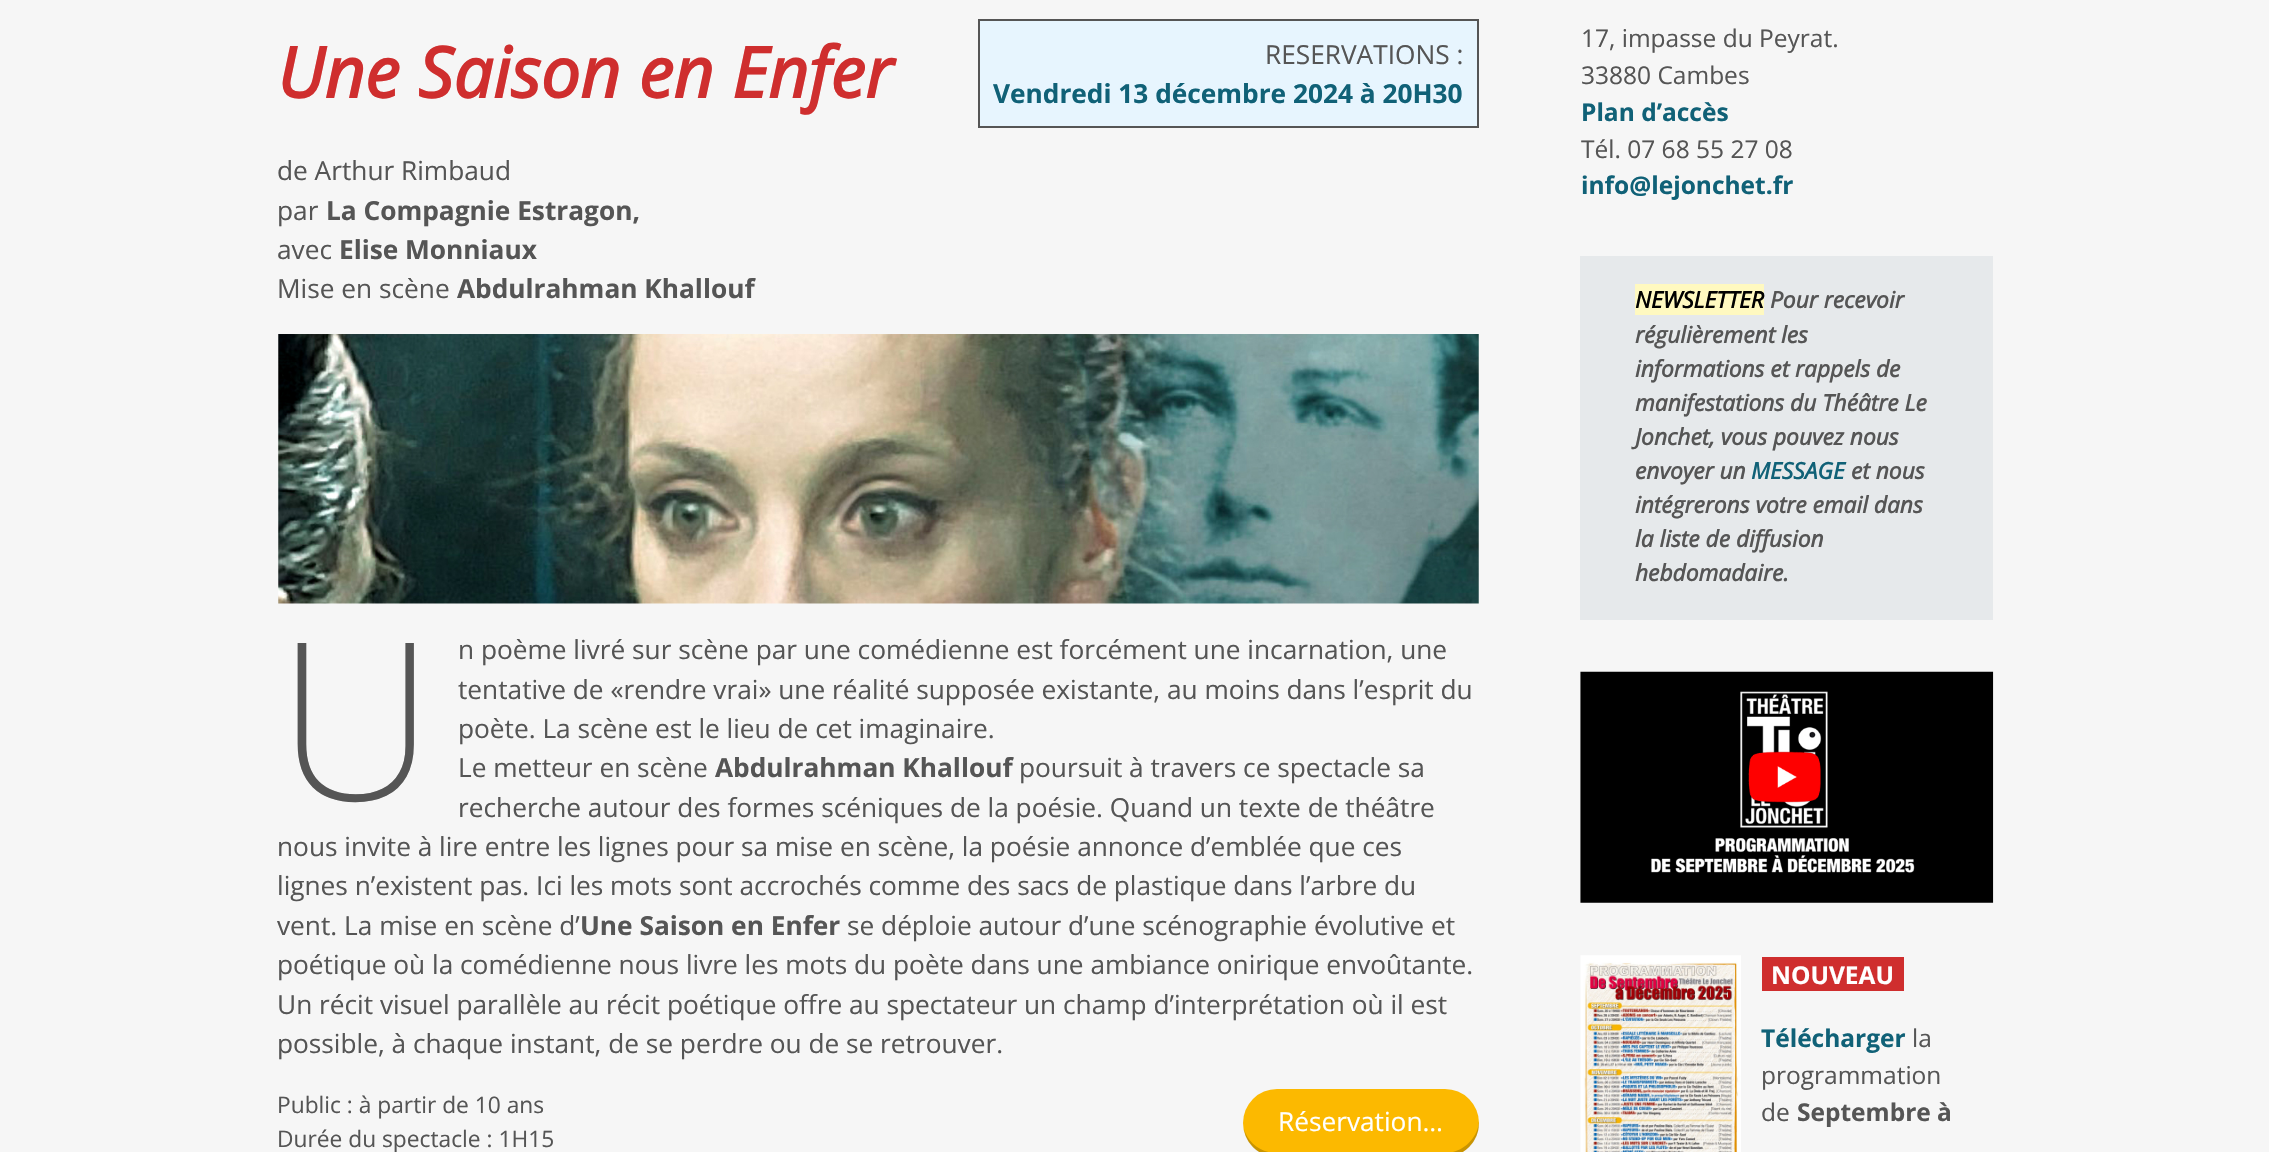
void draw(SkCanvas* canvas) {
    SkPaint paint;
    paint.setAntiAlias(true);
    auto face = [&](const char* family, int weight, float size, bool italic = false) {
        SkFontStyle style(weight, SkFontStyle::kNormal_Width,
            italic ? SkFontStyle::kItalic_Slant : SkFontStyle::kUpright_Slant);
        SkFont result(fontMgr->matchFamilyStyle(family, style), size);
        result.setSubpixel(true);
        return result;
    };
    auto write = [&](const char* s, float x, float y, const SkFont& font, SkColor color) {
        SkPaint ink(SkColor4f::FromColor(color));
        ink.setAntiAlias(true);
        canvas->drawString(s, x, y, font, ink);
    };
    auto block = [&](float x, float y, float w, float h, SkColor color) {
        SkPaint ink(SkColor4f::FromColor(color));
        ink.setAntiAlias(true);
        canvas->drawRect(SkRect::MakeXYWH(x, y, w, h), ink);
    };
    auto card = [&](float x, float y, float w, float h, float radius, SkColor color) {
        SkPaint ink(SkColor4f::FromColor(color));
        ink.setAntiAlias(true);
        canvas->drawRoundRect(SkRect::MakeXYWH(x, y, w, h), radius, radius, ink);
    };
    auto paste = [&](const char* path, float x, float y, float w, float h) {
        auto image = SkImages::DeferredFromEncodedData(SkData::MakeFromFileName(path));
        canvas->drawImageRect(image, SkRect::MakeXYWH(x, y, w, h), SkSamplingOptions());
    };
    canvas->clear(SkColorSetRGB(246, 246, 246));
    auto kFont1 = face("Open Sans", 700, 70, true);
    write("Une Saison en Enfer", 277, 98, kFont1, SkColorSetRGB(207, 46, 46));
    block(980, 21, 497, 105, SkColorSetRGB(231, 245, 254));
    block(978, 19, 501, 2, SkColorSetRGB(85, 85, 85));
    block(1477, 19, 2, 109, SkColorSetRGB(85, 85, 85));
    block(978, 126, 501, 2, SkColorSetRGB(85, 85, 85));
    block(978, 19, 2, 109, SkColorSetRGB(85, 85, 85));
    auto kFont2 = face("Open Sans", 400, 26.25f);
    write("RESERVATIONS :", 1265, 64, kFont2, SkColorSetRGB(85, 85, 85));
    auto kFont3 = face("Open Sans", 700, 26.25f);
    write("Vendredi 13 décembre 2024 à 20H30", 993, 103, kFont3, SkColorSetRGB(16, 97, 119));
    write("de Arthur Rimbaud", 277, 180, kFont2, SkColorSetRGB(85, 85, 85));
    write("par", 277, 220, kFont2, SkColorSetRGB(85, 85, 85));
    write("La Compagnie Estragon,", 326, 220, kFont3, SkColorSetRGB(85, 85, 85));
    write("avec", 277, 259, kFont2, SkColorSetRGB(85, 85, 85));
    write("Elise Monniaux", 339, 259, kFont3, SkColorSetRGB(85, 85, 85));
    write("Mise en scène", 277, 298, kFont2, SkColorSetRGB(85, 85, 85));
    write("Abdulrahman Khallouf", 457, 298, kFont3, SkColorSetRGB(85, 85, 85));
    paste("pic1.png", 278, 334, 1201, 270);
    auto kFont4 = face("Noto Sans", 200, 220);
    write("U", 277, 800, kFont4, SkColorSetRGB(85, 85, 85));
    write("n poème livré sur scène par une comédienne est forcément une incarnation, une", 458, 659, kFont2, SkColorSetRGB(85, 85, 85));
    write("tentative de «rendre vrai» une réalité supposée existante, au moins dans l’esprit du", 458, 699, kFont2, SkColorSetRGB(85, 85, 85));
    write("poète. La scène est le lieu de cet imaginaire.", 458, 738, kFont2, SkColorSetRGB(85, 85, 85));
    write("Le metteur en scène", 458, 777, kFont2, SkColorSetRGB(85, 85, 85));
    write("Abdulrahman Khallouf", 715, 777, kFont3, SkColorSetRGB(85, 85, 85));
    write("poursuit à travers ce spectacle sa", 1019, 777, kFont2, SkColorSetRGB(85, 85, 85));
    write("recherche autour des formes scéniques de la poésie. Quand un texte de théâtre", 458, 817, kFont2, SkColorSetRGB(85, 85, 85));
    write("nous invite à lire entre les lignes pour sa mise en scène, la poésie annonce d’emblée que ces", 277, 856, kFont2, SkColorSetRGB(85, 85, 85));
    write("lignes n’existent pas. Ici les mots sont accrochés comme des sacs de plastique dans l’arbre du", 277, 895, kFont2, SkColorSetRGB(85, 85, 85));
    write("vent. La mise en scène d’", 277, 935, kFont2, SkColorSetRGB(85, 85, 85));
    write("Une Saison en Enfer", 580, 935, kFont3, SkColorSetRGB(85, 85, 85));
    write("se déploie autour d’une scénographie évolutive et", 847, 935, kFont2, SkColorSetRGB(85, 85, 85));
    write("poétique où la comédienne nous livre les mots du poète dans une ambiance onirique envoûtante.", 277, 974, kFont2, SkColorSetRGB(85, 85, 85));
    write("Un récit visuel parallèle au récit poétique offre au spectateur un champ d’interprétation où il est", 277, 1014, kFont2, SkColorSetRGB(85, 85, 85));
    write("possible, à chaque instant, de se perdre ou de se retrouver.", 277, 1053, kFont2, SkColorSetRGB(85, 85, 85));
    auto kFont5 = face("Open Sans", 400, 22.75f);
    write("Public : à partir de 10 ans", 277, 1113, kFont5, SkColorSetRGB(85, 85, 85));
    write("Durée du spectacle : 1H15", 277, 1147, kFont5, SkColorSetRGB(85, 85, 85));
    card(1243, 1089, 236, 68, 34, SkColorSetRGB(252, 185, 0));
    paint.setColor(SkColorSetARGB(51, 0, 0, 0));
    canvas->drawPath(SkPathBuilder().moveTo(1244, 1129).cubicTo(1246, 1145, 1260, 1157, 1277, 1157).lineTo(1445, 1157).cubicTo(1464, 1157, 1479, 1142, 1479, 1123).lineTo(1479, 1121).cubicTo(1478, 1139, 1462, 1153, 1445, 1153).lineTo(1277, 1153).cubicTo(1261, 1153, 1248, 1143, 1244, 1129).close().detach(), paint);
    write("Réservation…", 1278, 1131, kFont2, SK_ColorWHITE);
    auto kFont6 = face("Open Sans", 400, 24.5f);
    write("17, impasse du Peyrat.", 1581, 47, kFont6, SkColorSetRGB(85, 85, 85));
    write("33880 Cambes", 1581, 84, kFont6, SkColorSetRGB(85, 85, 85));
    auto kFont7 = face("Open Sans", 700, 24.5f);
    write("Plan d’accès", 1581, 121, kFont7, SkColorSetRGB(16, 97, 119));
    write("Tél. 07 68 55 27 08", 1581, 158, kFont6, SkColorSetRGB(85, 85, 85));
    write("info@lejonchet.fr", 1581, 194, kFont7, SkColorSetRGB(16, 97, 119));
    block(1580, 256, 413, 364, SkColorSetRGB(230, 233, 235));
    block(1635, 284, 129, 31, SkColorSetRGB(255, 249, 192));
    auto kFont8 = face("Open Sans", 700, 22.75f, true);
    write("NEWSLETTER", 1635, 308, kFont8, SK_ColorBLACK);
    write("Pour recevoir", 1770, 308, kFont8, SkColorSetRGB(85, 85, 85));
    write("régulièrement les", 1635, 343, kFont8, SkColorSetRGB(85, 85, 85));
    write("informations et rappels de", 1635, 377, kFont8, SkColorSetRGB(85, 85, 85));
    write("manifestations du Théâtre Le", 1635, 411, kFont8, SkColorSetRGB(85, 85, 85));
    write("Jonchet, vous pouvez nous", 1635, 445, kFont8, SkColorSetRGB(85, 85, 85));
    write("envoyer un", 1635, 479, kFont8, SkColorSetRGB(85, 85, 85));
    write("MESSAGE", 1751, 479, kFont8, SkColorSetRGB(16, 97, 119));
    write("et nous", 1851, 479, kFont8, SkColorSetRGB(85, 85, 85));
    write("intégrerons votre email dans", 1635, 513, kFont8, SkColorSetRGB(85, 85, 85));
    write("la liste de diffusion", 1635, 547, kFont8, SkColorSetRGB(85, 85, 85));
    write("hebdomadaire.", 1635, 581, kFont8, SkColorSetRGB(85, 85, 85));
    paste("pic2.png", 1580, 671, 414, 232);
    paste("pic3.png", 1580, 955, 161, 197);
    block(1762, 957, 142, 34, SkColorSetRGB(207, 46, 46));
    write("NOUVEAU", 1771, 984, kFont7, SK_ColorWHITE);
    write("Télécharger", 1761, 1047, kFont7, SkColorSetRGB(16, 97, 119));
    write("la", 1912, 1047, kFont6, SkColorSetRGB(85, 85, 85));
    write("programmation", 1761, 1084, kFont6, SkColorSetRGB(85, 85, 85));
    write("de", 1761, 1121, kFont6, SkColorSetRGB(85, 85, 85));
    write("Septembre à", 1797, 1121, kFont7, SkColorSetRGB(85, 85, 85));
}
